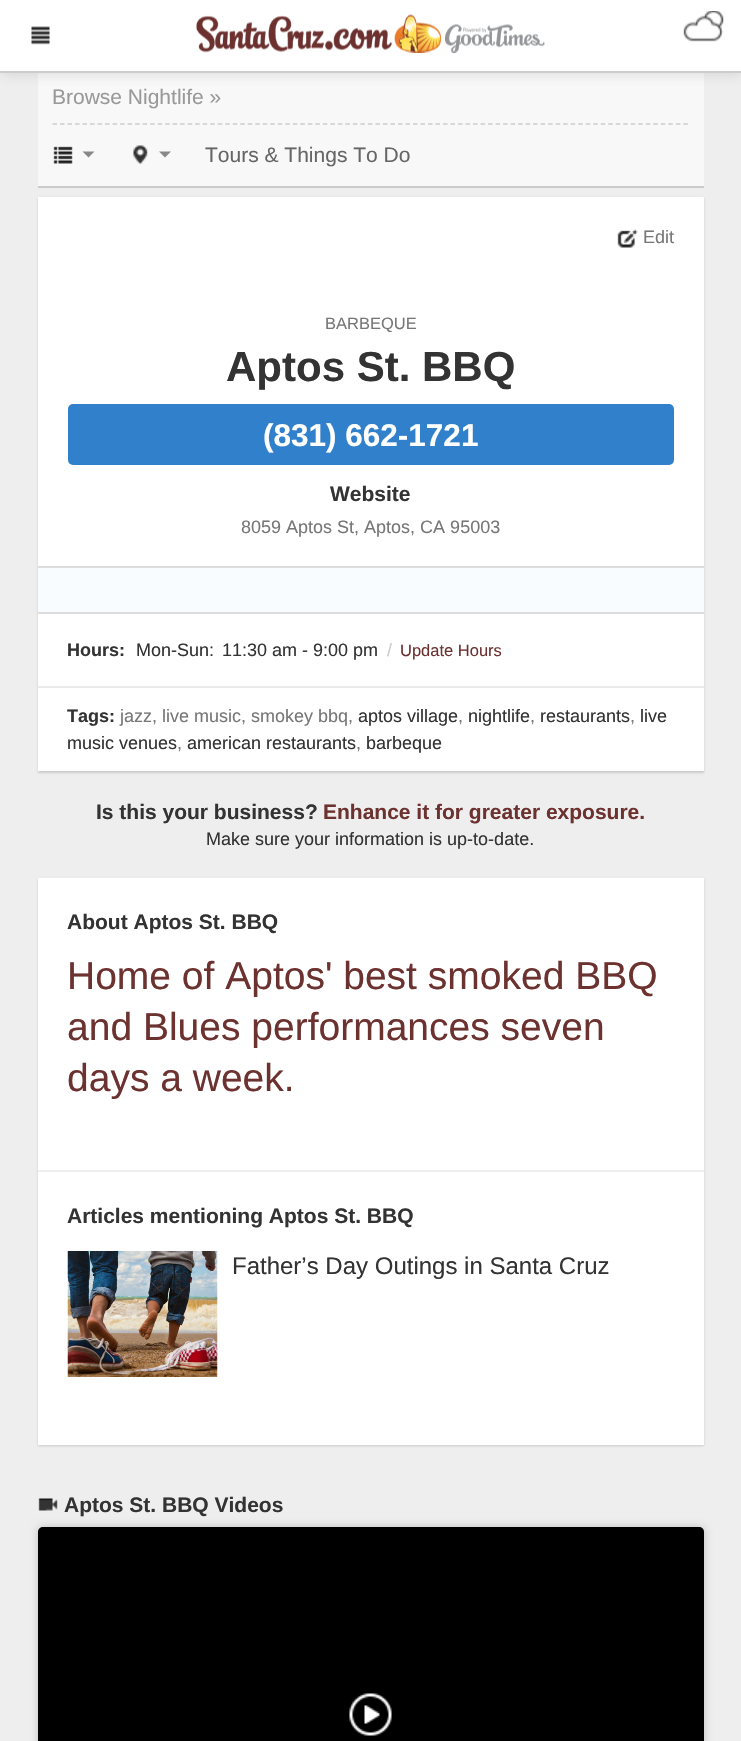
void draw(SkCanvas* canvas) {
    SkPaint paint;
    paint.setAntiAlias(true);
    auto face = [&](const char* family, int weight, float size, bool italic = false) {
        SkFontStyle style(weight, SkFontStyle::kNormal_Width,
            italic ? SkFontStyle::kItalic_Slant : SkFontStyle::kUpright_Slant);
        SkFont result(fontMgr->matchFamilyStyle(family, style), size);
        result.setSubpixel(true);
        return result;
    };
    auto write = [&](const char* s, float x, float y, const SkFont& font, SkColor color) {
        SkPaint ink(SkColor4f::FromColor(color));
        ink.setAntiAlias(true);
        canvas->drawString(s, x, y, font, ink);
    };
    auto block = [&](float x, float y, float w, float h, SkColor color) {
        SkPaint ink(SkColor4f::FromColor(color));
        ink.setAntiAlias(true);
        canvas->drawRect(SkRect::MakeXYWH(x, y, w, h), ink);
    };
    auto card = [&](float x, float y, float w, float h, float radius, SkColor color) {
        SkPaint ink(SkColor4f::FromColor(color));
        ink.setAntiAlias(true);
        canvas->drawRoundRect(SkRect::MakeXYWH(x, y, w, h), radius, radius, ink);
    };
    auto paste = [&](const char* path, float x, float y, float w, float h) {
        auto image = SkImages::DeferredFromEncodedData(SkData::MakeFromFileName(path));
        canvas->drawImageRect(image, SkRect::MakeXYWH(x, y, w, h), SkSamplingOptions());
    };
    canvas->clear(SkColorSetRGB(238, 238, 238));
    block(38, 73, 666, 113, SkColorSetRGB(248, 248, 248));
    paint.setColor(SkColorSetARGB(51, 102, 102, 102));
    paint.setMaskFilter(SkMaskFilter::MakeBlur(kNormal_SkBlurStyle, 6));
    canvas->drawRect(SkRect::MakeXYWH(2, 2, 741, 72), paint);
    paint.setMaskFilter(nullptr);
    block(0, 0, 741, 71, SK_ColorWHITE);
    block(0, 71, 741, 2, SkColorSetRGB(204, 204, 204));
    paste("pic1.png", 31, 26, 19, 19);
    paste("pic2.png", 196, 14, 349, 39);
    paste("pic3.png", 683, 11, 41, 31);
    block(38, 186, 666, 2, SkColorSetRGB(203, 203, 203));
    paint.setStyle(SkPaint::kStroke_Style);
    paint.setStrokeWidth(1.5f);
    paint.setColor(SkColorSetRGB(204, 204, 204));
    paint.setPathEffect(SkDashPathEffect::Make({{4.5f, 3.01f}}, 0));
    canvas->drawPath(SkPathBuilder().moveTo(52.5f, 124).lineTo(688.5f, 124).detach(), paint);
    paint.setPathEffect(nullptr);
    auto kFont1 = face("Liberation Sans", 400, 21);
    write("Browse Nightlife »", 52, 104, kFont1, SkColorSetRGB(153, 153, 153));
    paste("pic4.png", 53, 146, 20, 18);
    paint.setStyle(SkPaint::kFill_Style);
    paint.setColor(SkColorSetRGB(136, 136, 136));
    canvas->drawPath(SkPathBuilder().moveTo(82.5f, 151.5f).lineTo(94.5f, 151.5f).lineTo(88.5f, 157.5f).close().detach(), paint);
    paste("pic5.png", 133, 145, 15, 19);
    canvas->drawPath(SkPathBuilder().moveTo(159, 151.5f).lineTo(171, 151.5f).lineTo(165, 157.5f).close().detach(), paint);
    write("Tours & Things To Do", 205, 162, kFont1, SkColorSetRGB(102, 102, 102));
    paint.setColor(SkColorSetRGB(203, 203, 203));
    paint.setMaskFilter(SkMaskFilter::MakeBlur(kNormal_SkBlurStyle, 1));
    canvas->drawRect(SkRect::MakeXYWH(38, 198, 666, 575), paint);
    paint.setMaskFilter(nullptr);
    block(38, 197, 666, 574, SK_ColorWHITE);
    paste("pic6.png", 617, 229, 21, 19);
    auto kFont2 = face("Liberation Sans", 400, 18);
    write("Edit", 643, 243, kFont2, SkColorSetRGB(119, 119, 119));
    auto kFont3 = face("Liberation Sans", 400, 16.5f);
    write("BARBEQUE", 325, 329, kFont3, SkColorSetRGB(119, 119, 119));
    auto kFont4 = face("Liberation Sans", 700, 42);
    write("Aptos St. BBQ", 226, 381, kFont4, SkColorSetRGB(51, 51, 51));
    card(68, 404, 606, 61, 5, SkColorSetRGB(48, 128, 203));
    auto kFont5 = face("Liberation Sans", 700, 31.5f);
    write("(831) 662-1721", 263, 446, kFont5, SK_ColorWHITE);
    auto kFont6 = face("Liberation Sans", 700, 21);
    write("Website", 330, 501, kFont6, SkColorSetRGB(51, 51, 51));
    write("8059 Aptos St, Aptos, CA 95003", 241, 533, kFont2, SkColorSetRGB(119, 119, 119));
    block(38, 568, 666, 44, SkColorSetRGB(248, 252, 255));
    block(38, 566, 666, 2, SkColorSetRGB(221, 221, 221));
    block(38, 612, 666, 2, SkColorSetRGB(221, 221, 221));
    auto kFont7 = face("Liberation Sans", 700, 18);
    write("Hours:", 67, 656, kFont7, SkColorSetRGB(51, 51, 51));
    write("Mon-Sun:", 136, 656, kFont2, SkColorSetRGB(51, 51, 51));
    write("11:30 am - 9:00 pm", 222, 656, kFont2, SkColorSetRGB(51, 51, 51));
    write("/", 387, 656, kFont2, SkColorSetRGB(204, 204, 204));
    write("Update Hours", 400, 656, kFont3, SkColorSetRGB(108, 50, 48));
    block(38, 686, 666, 2, SkColorSetRGB(234, 234, 234));
    write("Tags:", 67, 722, kFont7, SkColorSetRGB(51, 51, 51));
    write("jazz, live music, smokey bbq,", 120, 722, kFont2, SkColorSetRGB(119, 119, 119));
    write("aptos village", 358, 722, kFont2, SkColorSetRGB(51, 51, 51));
    write(",", 458, 722, kFont2, SkColorSetRGB(119, 119, 119));
    write("nightlife", 468, 722, kFont2, SkColorSetRGB(51, 51, 51));
    write(",", 530, 722, kFont2, SkColorSetRGB(119, 119, 119));
    write("restaurants", 540, 722, kFont2, SkColorSetRGB(51, 51, 51));
    write(",", 630, 722, kFont2, SkColorSetRGB(119, 119, 119));
    write("live", 640, 722, kFont2, SkColorSetRGB(51, 51, 51));
    write("music venues", 67, 749, kFont2, SkColorSetRGB(51, 51, 51));
    write(",", 177, 749, kFont2, SkColorSetRGB(119, 119, 119));
    write("american restaurants", 187, 749, kFont2, SkColorSetRGB(51, 51, 51));
    write(",", 356, 749, kFont2, SkColorSetRGB(119, 119, 119));
    write("barbeque", 366, 749, kFont2, SkColorSetRGB(51, 51, 51));
    write("Is this your business?", 96, 819, kFont6, SkColorSetRGB(51, 51, 51));
    write("Enhance it for greater exposure.", 323, 819, kFont6, SkColorSetRGB(108, 50, 48));
    write("Make sure your information is up-to-date.", 206, 845, kFont2, SkColorSetRGB(51, 51, 51));
    paint.setMaskFilter(SkMaskFilter::MakeBlur(kNormal_SkBlurStyle, 1));
    canvas->drawRect(SkRect::MakeXYWH(38, 879, 666, 567), paint);
    paint.setMaskFilter(nullptr);
    block(38, 878, 666, 567, SK_ColorWHITE);
    write("About Aptos St. BBQ", 67, 929, kFont6, SkColorSetRGB(51, 51, 51));
    auto kFont8 = face("Liberation Sans", 400, 39);
    write("Home of Aptos' best smoked BBQ", 67, 989, kFont8, SkColorSetRGB(108, 50, 48));
    write("and Blues performances seven", 67, 1040, kFont8, SkColorSetRGB(108, 50, 48));
    write("days a week.", 67, 1091, kFont8, SkColorSetRGB(108, 50, 48));
    block(38, 1170, 666, 2, SkColorSetRGB(238, 238, 238));
    write("Articles mentioning Aptos St. BBQ", 67, 1223, kFont6, SkColorSetRGB(51, 51, 51));
    paste("pic7.png", 67, 1251, 151, 126);
    auto kFont9 = face("Liberation Sans", 400, 24);
    write("Father’s Day Outings in Santa Cruz", 232, 1274, kFont9, SkColorSetRGB(51, 51, 51));
    paste("pic8.png", 38, 1498, 20, 13);
    write("Aptos St. BBQ Videos", 64, 1512, kFont6, SkColorSetRGB(51, 51, 51));
    paint.setColor(SkColorSetARGB(51, 0, 0, 0));
    paint.setMaskFilter(SkMaskFilter::MakeBlur(kNormal_SkBlurStyle, 4));
    canvas->drawRoundRect(SkRect::MakeXYWH(38, 1527, 666, 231), 5, 5, paint);
    paint.setMaskFilter(nullptr);
    card(38, 1527, 666, 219, 5, SK_ColorBLACK);
    card(38, 1527, 666, 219, 5, SkColorSetARGB(102, 0, 0, 0));
    paste("pic9.png", 349, 1693, 43, 43);
}
